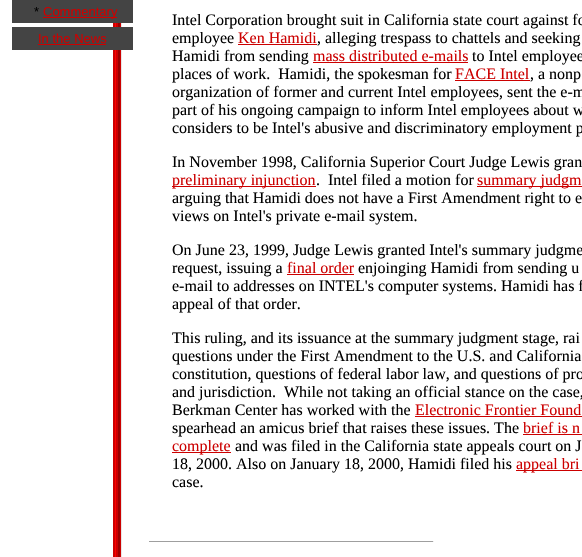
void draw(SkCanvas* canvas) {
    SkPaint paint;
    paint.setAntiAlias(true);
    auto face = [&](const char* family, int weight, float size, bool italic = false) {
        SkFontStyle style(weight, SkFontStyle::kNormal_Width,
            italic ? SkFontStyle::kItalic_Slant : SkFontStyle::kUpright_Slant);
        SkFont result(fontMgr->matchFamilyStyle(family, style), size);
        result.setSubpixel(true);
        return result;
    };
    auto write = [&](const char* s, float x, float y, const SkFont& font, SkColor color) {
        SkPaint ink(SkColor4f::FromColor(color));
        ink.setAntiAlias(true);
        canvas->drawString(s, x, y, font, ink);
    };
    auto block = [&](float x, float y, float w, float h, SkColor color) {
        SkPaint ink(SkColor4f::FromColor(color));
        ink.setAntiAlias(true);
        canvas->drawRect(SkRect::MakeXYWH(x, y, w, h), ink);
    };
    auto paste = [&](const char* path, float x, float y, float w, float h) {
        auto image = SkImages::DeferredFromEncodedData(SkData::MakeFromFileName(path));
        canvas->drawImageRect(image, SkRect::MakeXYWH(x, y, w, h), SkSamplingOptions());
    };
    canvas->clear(SK_ColorWHITE);
    paste("pic1.png", 113, 23, 9, 534);
    block(12, 0, 121, 23, SkColorSetRGB(68, 68, 68));
    auto kFont1 = face("Liberation Sans", 400, 13);
    write("*", 34, 16, kFont1, SK_ColorBLACK);
    block(43, 17, 74, 1, SkColorSetRGB(204, 0, 0));
    write("Commentary", 43, 16, kFont1, SkColorSetRGB(204, 0, 0));
    block(12, 27, 121, 23, SkColorSetRGB(68, 68, 68));
    write("In the News", 38, 43, kFont1, SkColorSetRGB(204, 0, 0));
    block(38, 44, 68, 1, SkColorSetRGB(204, 0, 0));
    auto kFont2 = face("Liberation Serif", 400, 16);
    write("Intel Corporation brought suit in California state court against fo", 172, 25, kFont2, SK_ColorBLACK);
    write("employee", 172, 43, kFont2, SK_ColorBLACK);
    write("Ken Hamidi", 238, 43, kFont2, SkColorSetRGB(204, 0, 0));
    block(238, 44, 79, 1, SkColorSetRGB(204, 0, 0));
    write(", alleging trespass to chattels and seeking", 317, 43, kFont2, SK_ColorBLACK);
    write("Hamidi from sending", 172, 61, kFont2, SK_ColorBLACK);
    write("mass distributed e-mails", 313, 61, kFont2, SkColorSetRGB(204, 0, 0));
    block(313, 62, 155, 1, SkColorSetRGB(204, 0, 0));
    write("to Intel employee", 472, 61, kFont2, SK_ColorBLACK);
    write("places of work.  Hamidi, the spokesman for", 172, 79, kFont2, SK_ColorBLACK);
    write("FACE Intel", 455, 79, kFont2, SkColorSetRGB(204, 0, 0));
    block(455, 80, 75, 1, SkColorSetRGB(204, 0, 0));
    write(", a nonp", 530, 79, kFont2, SK_ColorBLACK);
    write("organization of former and current Intel employees, sent the e-m", 172, 97, kFont2, SK_ColorBLACK);
    write("part of his ongoing campaign to inform Intel employees about w", 172, 115, kFont2, SK_ColorBLACK);
    write("considers to be Intel's abusive and discriminatory employment p", 172, 133, kFont2, SK_ColorBLACK);
    write("In November 1998, California Superior Court Judge Lewis gran", 172, 167, kFont2, SK_ColorBLACK);
    block(172, 186, 144, 1, SkColorSetRGB(204, 0, 0));
    write("preliminary injunction", 172, 185, kFont2, SkColorSetRGB(204, 0, 0));
    write(".  Intel filed a motion for", 316, 185, kFont2, SK_ColorBLACK);
    block(477, 186, 105, 1, SkColorSetRGB(204, 0, 0));
    write("summary judgm", 477, 185, kFont2, SkColorSetRGB(204, 0, 0));
    write("arguing that Hamidi does not have a First Amendment right to e", 172, 203, kFont2, SK_ColorBLACK);
    write("views on Intel's private e-mail system.", 172, 221, kFont2, SK_ColorBLACK);
    write("On June 23, 1999, Judge Lewis granted Intel's summary judgme", 172, 255, kFont2, SK_ColorBLACK);
    write("request, issuing a", 172, 273, kFont2, SK_ColorBLACK);
    write("final order", 287, 273, kFont2, SkColorSetRGB(204, 0, 0));
    block(287, 274, 67, 1, SkColorSetRGB(204, 0, 0));
    write("enjoinging Hamidi from sending u", 358, 273, kFont2, SK_ColorBLACK);
    write("e-mail to addresses on INTEL's computer systems. Hamidi has f", 172, 291, kFont2, SK_ColorBLACK);
    write("appeal of that order.", 172, 309, kFont2, SK_ColorBLACK);
    write("This ruling, and its issuance at the summary judgment stage, rai", 172, 343, kFont2, SK_ColorBLACK);
    write("questions under the First Amendment to the U.S. and California", 172, 361, kFont2, SK_ColorBLACK);
    write("constitution, questions of federal labor law, and questions of pro", 172, 379, kFont2, SK_ColorBLACK);
    write("and jurisdiction.  While not taking an official stance on the case,", 172, 397, kFont2, SK_ColorBLACK);
    write("Berkman Center has worked with the", 172, 415, kFont2, SK_ColorBLACK);
    write("Electronic Frontier Found", 415, 415, kFont2, SkColorSetRGB(204, 0, 0));
    block(415, 416, 167, 1, SkColorSetRGB(204, 0, 0));
    write("spearhead an amicus brief that raises these issues. The", 172, 433, kFont2, SK_ColorBLACK);
    write("brief is n", 523, 433, kFont2, SkColorSetRGB(204, 0, 0));
    block(523, 434, 59, 1, SkColorSetRGB(204, 0, 0));
    block(172, 452, 59, 1, SkColorSetRGB(204, 0, 0));
    write("complete", 172, 451, kFont2, SkColorSetRGB(204, 0, 0));
    write("and was filed in the California state appeals court on J", 235, 451, kFont2, SK_ColorBLACK);
    write("18, 2000. Also on January 18, 2000, Hamidi filed his", 172, 469, kFont2, SK_ColorBLACK);
    block(516, 470, 66, 1, SkColorSetRGB(204, 0, 0));
    write("appeal bri", 516, 469, kFont2, SkColorSetRGB(204, 0, 0));
    write("case.", 172, 487, kFont2, SK_ColorBLACK);
    block(149, 541, 285, 1, SkColorSetRGB(159, 159, 159));
    block(433, 541, 1, 1, SkColorSetRGB(238, 238, 238));
}
